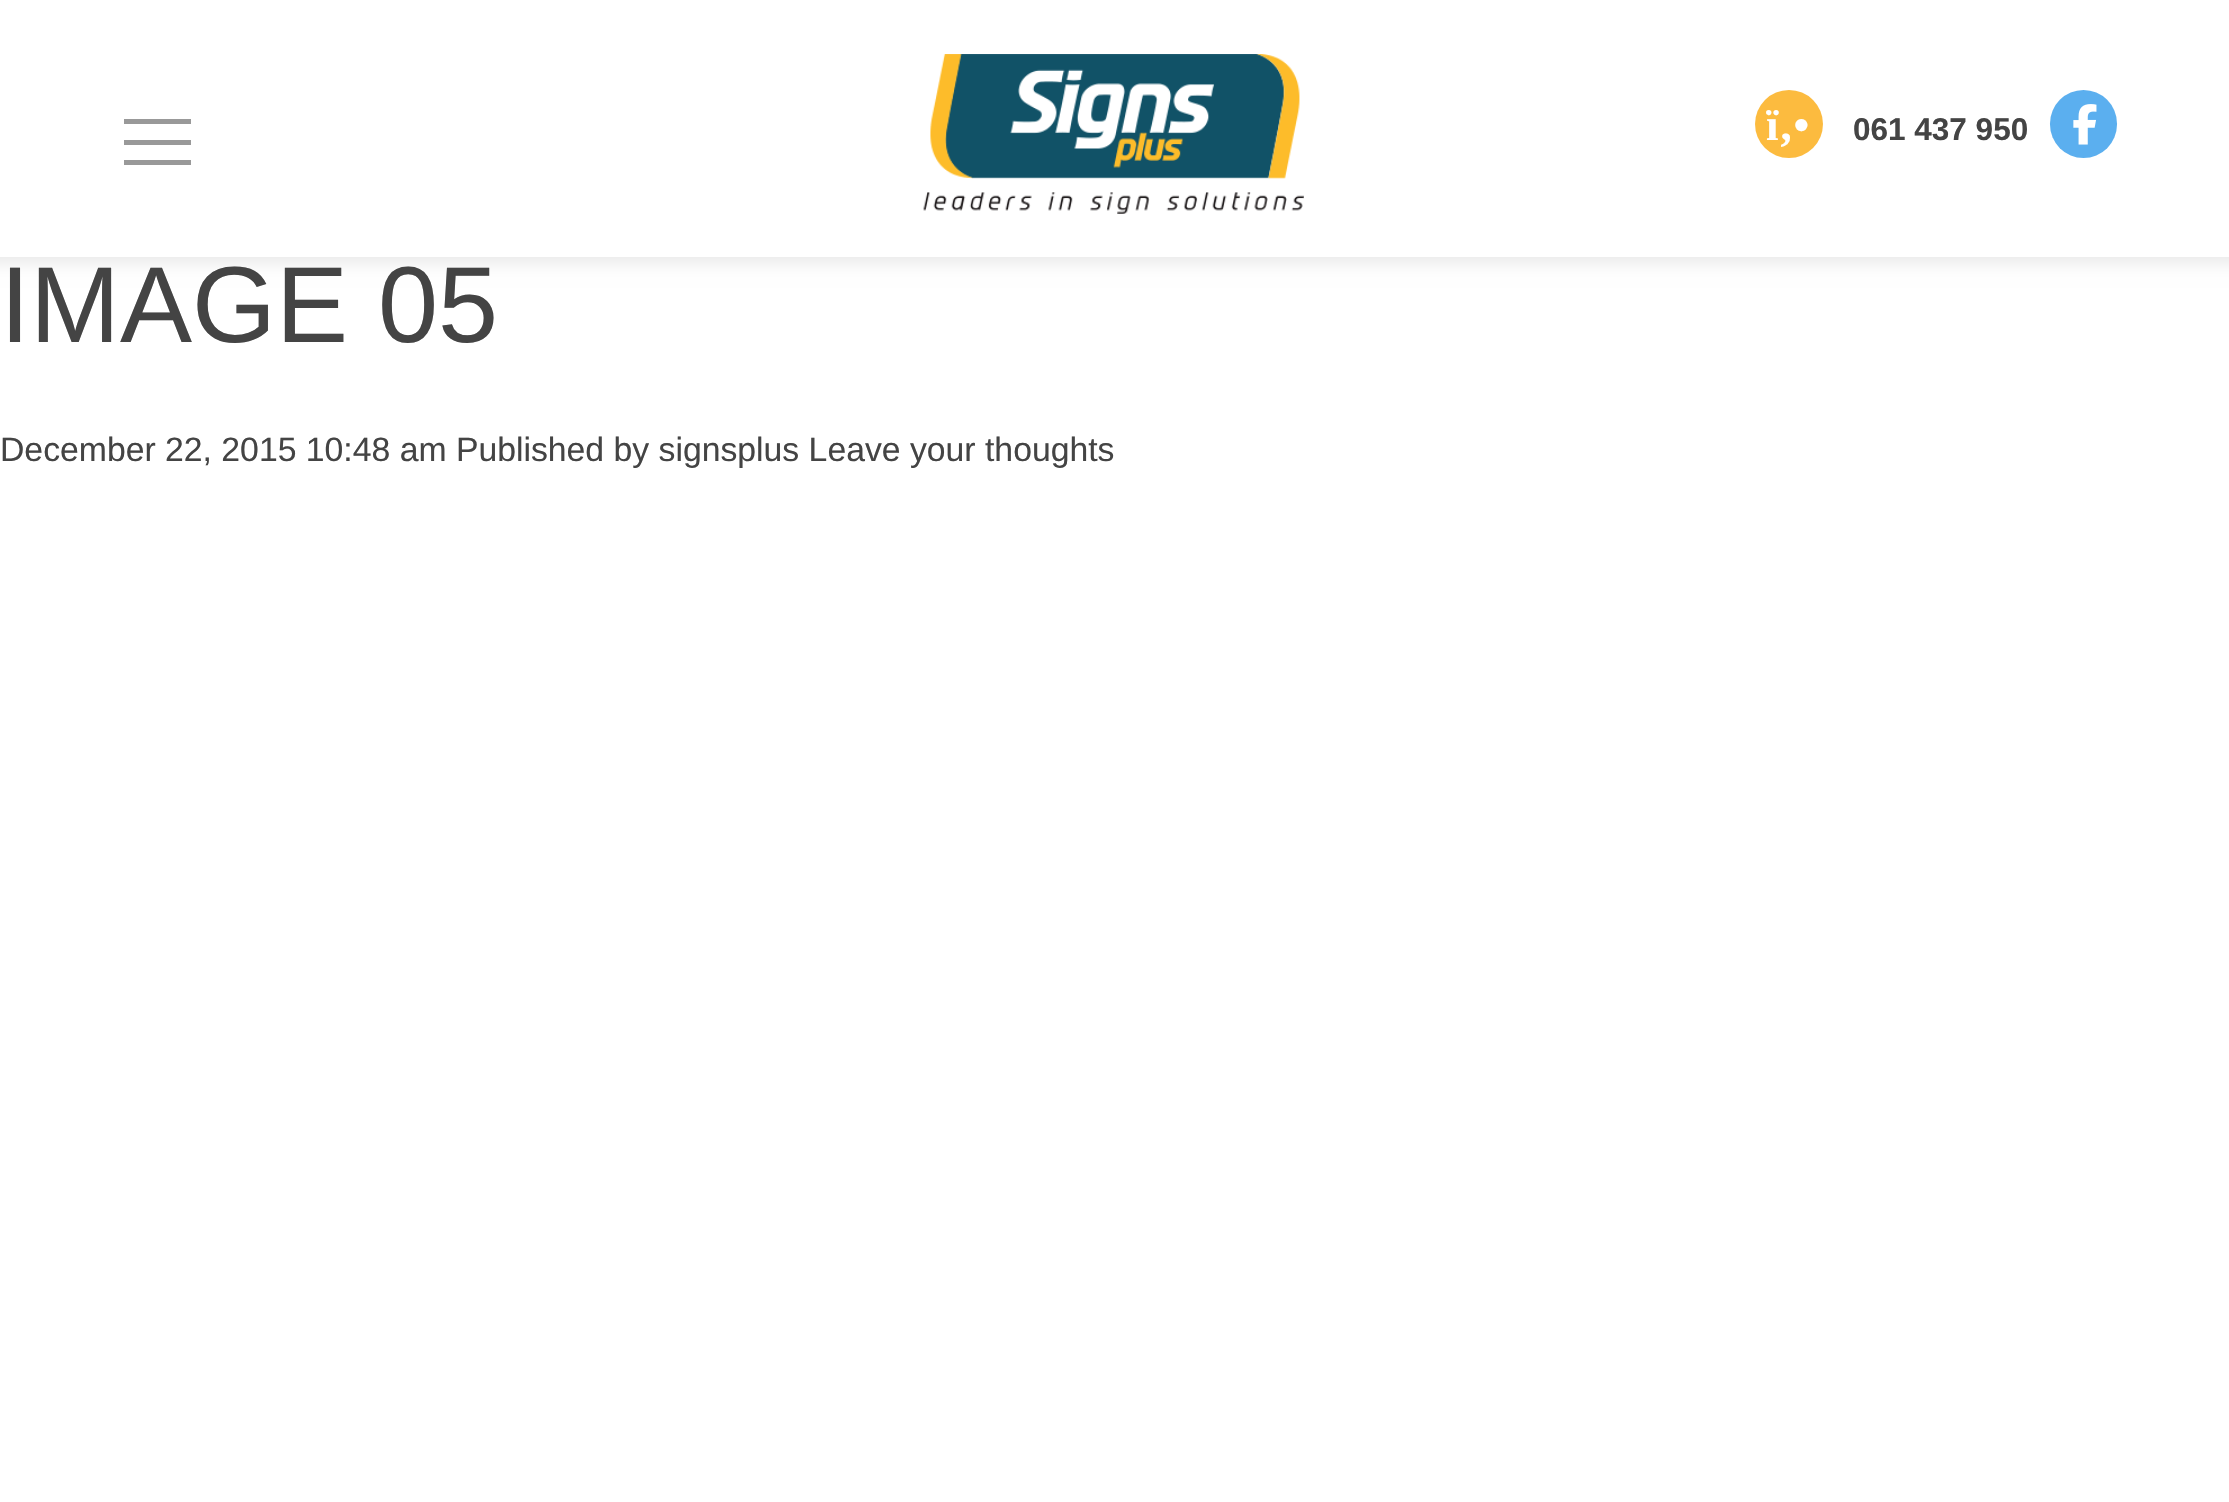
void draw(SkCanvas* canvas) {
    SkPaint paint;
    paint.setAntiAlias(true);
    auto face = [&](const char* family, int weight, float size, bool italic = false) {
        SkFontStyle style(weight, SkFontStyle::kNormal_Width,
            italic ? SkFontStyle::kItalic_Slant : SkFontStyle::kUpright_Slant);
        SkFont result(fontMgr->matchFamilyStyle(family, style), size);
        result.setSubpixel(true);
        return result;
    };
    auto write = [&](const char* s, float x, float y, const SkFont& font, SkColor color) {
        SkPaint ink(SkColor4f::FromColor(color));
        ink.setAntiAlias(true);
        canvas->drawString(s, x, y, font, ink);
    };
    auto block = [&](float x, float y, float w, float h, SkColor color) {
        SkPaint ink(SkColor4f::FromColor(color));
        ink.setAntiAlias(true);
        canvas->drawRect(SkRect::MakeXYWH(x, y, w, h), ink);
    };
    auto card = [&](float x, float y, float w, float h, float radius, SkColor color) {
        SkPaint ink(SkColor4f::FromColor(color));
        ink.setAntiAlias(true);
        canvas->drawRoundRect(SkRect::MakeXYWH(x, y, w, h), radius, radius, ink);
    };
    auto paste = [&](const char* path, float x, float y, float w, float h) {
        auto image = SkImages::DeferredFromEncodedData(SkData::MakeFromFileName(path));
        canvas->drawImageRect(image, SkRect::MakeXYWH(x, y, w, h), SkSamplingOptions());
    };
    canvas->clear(SK_ColorWHITE);
    paint.setColor(SkColorSetARGB(26, 0, 0, 0));
    paint.setMaskFilter(SkMaskFilter::MakeBlur(kNormal_SkBlurStyle, 9));
    canvas->drawRect(SkRect::MakeXYWH(-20, -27, 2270, 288), paint);
    paint.setMaskFilter(nullptr);
    block(0, 0, 2229, 257, SK_ColorWHITE);
    block(124, 119, 67, 5, SkColorSetRGB(153, 153, 153));
    block(124, 140, 67, 5, SkColorSetRGB(153, 153, 153));
    block(124, 160, 67, 5, SkColorSetRGB(153, 153, 153));
    paste("pic1.png", 923, 54, 381, 160);
    paint.setColor(SkColorSetRGB(252, 187, 63));
    canvas->drawCircle(1789, 124, 34, paint);
    auto kFont1 = face("Liberation Serif", 700, 45);
    write("ï‚•", 1766, 140, kFont1, SK_ColorWHITE);
    auto kFont2 = face("Liberation Sans", 700, 31.5f);
    write("061 437 950", 1853, 140, kFont2, SkColorSetRGB(68, 68, 68));
    card(2050, 90, 67, 68, 33.5f, SkColorSetRGB(91, 175, 239));
    paste("pic2.png", 2073, 104, 24, 41);
    auto kFont3 = face("Liberation Sans", 400, 108);
    write("IMAGE 05", 0, 342, kFont3, SkColorSetRGB(68, 68, 68));
    auto kFont4 = face("Liberation Sans", 400, 33.75f);
    write("December 22, 2015 10:48 am Published by signsplus Leave your thoughts", 0, 461, kFont4, SkColorSetRGB(68, 68, 68));
}
